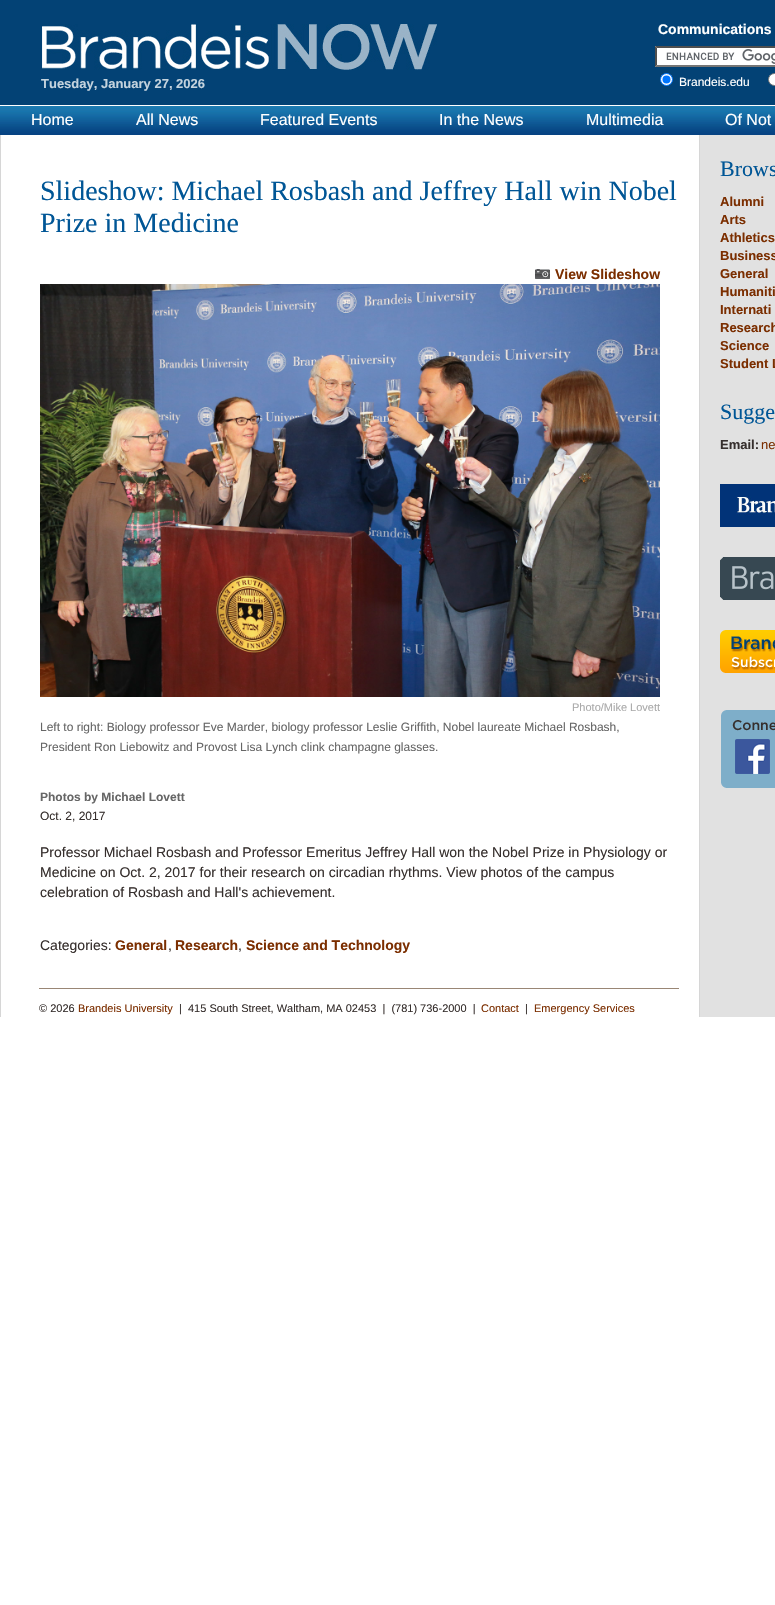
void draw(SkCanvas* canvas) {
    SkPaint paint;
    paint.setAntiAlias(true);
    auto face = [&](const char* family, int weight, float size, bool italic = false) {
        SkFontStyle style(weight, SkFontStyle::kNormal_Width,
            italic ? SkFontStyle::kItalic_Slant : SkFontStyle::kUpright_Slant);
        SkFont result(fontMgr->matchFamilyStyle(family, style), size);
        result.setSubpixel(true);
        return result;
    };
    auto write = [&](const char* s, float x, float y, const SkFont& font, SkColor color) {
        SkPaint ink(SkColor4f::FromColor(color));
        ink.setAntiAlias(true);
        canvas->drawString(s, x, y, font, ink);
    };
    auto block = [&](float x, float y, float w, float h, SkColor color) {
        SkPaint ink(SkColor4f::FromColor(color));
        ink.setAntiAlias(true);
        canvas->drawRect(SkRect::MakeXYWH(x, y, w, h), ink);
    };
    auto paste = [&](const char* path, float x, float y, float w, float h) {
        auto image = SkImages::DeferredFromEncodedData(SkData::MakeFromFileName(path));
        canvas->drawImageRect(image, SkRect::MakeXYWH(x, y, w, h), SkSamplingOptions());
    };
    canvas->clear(SK_ColorWHITE);
    block(0, 0, 775, 105, SkColorSetRGB(3, 66, 117));
    paste("pic1.png", 42, 24, 395, 46);
    auto kFont1 = face("Liberation Sans", 700, 14);
    write("Communications", 658, 34, kFont1, SK_ColorWHITE);
    block(655, 46, 120, 21, SK_ColorWHITE);
    paste("pic2.png", 666, 49, 109, 15);
    paint.setColor(SkColorSetRGB(79, 79, 79));
    canvas->drawPath(SkPathBuilder().moveTo(655, 46).lineTo(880, 46).lineTo(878, 48).lineTo(657, 48).close().detach(), paint);
    paint.setColor(SkColorSetRGB(118, 118, 118));
    canvas->drawPath(SkPathBuilder().moveTo(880, 67).lineTo(655, 67).lineTo(657, 65).lineTo(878, 65).close().detach(), paint);
    paint.setColor(SkColorSetRGB(79, 79, 79));
    canvas->drawPath(SkPathBuilder().moveTo(655, 67).lineTo(655, 46).lineTo(657, 48).lineTo(657, 65).close().detach(), paint);
    paint.setColor(SK_ColorWHITE);
    canvas->drawCircle(666.5f, 79.5f, 6, paint);
    paint.setStyle(SkPaint::kStroke_Style);
    paint.setStrokeWidth(1);
    paint.setColor(SkColorSetRGB(0, 117, 255));
    canvas->drawCircle(666.5f, 79.5f, 6, paint);
    paint.setStyle(SkPaint::kFill_Style);
    canvas->drawCircle(666.5f, 79.5f, 4, paint);
    auto kFont2 = face("Liberation Sans", 400, 12);
    write("Brandeis.edu", 679, 86, kFont2, SK_ColorWHITE);
    paint.setColor(SK_ColorWHITE);
    canvas->drawCircle(774.5f, 79.5f, 6, paint);
    paint.setStyle(SkPaint::kStroke_Style);
    paint.setColor(SkColorSetRGB(118, 118, 118));
    canvas->drawCircle(774.5f, 79.5f, 6, paint);
    auto kFont3 = face("Liberation Sans", 700, 13);
    write("Tuesday, January 27, 2026", 41, 88, kFont3, SkColorSetRGB(196, 211, 222));
    paste("pic3.png", 0, 106, 775, 29);
    auto kFont4 = face("Liberation Sans", 400, 16);
    write("Home", 31, 125, kFont4, SK_ColorWHITE);
    write("All News", 136, 125, kFont4, SK_ColorWHITE);
    write("Featured Events", 260, 125, kFont4, SK_ColorWHITE);
    write("In the News", 439, 125, kFont4, SK_ColorWHITE);
    write("Multimedia", 586, 125, kFont4, SK_ColorWHITE);
    write("Of Not", 725, 125, kFont4, SK_ColorWHITE);
    paste("pic4.png", 0, 135, 775, 882);
    auto kFont5 = face("Liberation Serif", 400, 28);
    write("Slideshow: Michael Rosbash and Jeffrey Hall win Nobel", 40, 200, kFont5, SkColorSetRGB(0, 86, 150));
    write("Prize in Medicine", 40, 232, kFont5, SkColorSetRGB(0, 86, 150));
    paste("pic5.png", 535, 269, 15, 10);
    write("View Slideshow", 555, 279, kFont1, SkColorSetRGB(123, 46, 0));
    paste("pic6.png", 40, 284, 620, 413);
    auto kFont6 = face("Liberation Sans", 400, 11);
    write("Photo/Mike Lovett", 572, 711, kFont6, SkColorSetRGB(170, 170, 170));
    write("Left to right: Biology professor Eve Marder, biology professor Leslie Griffith, Nobel laureate Michael Rosbash,", 40, 731, kFont2, SkColorSetRGB(102, 102, 102));
    write("President Ron Liebowitz and Provost Lisa Lynch clink champagne glasses.", 40, 751, kFont2, SkColorSetRGB(102, 102, 102));
    auto kFont7 = face("Liberation Sans", 700, 12);
    write("Photos by Michael Lovett", 40, 801, kFont7, SkColorSetRGB(102, 102, 102));
    write("Oct. 2, 2017", 40, 820, kFont2, SkColorSetRGB(54, 47, 45));
    auto kFont8 = face("Liberation Sans", 400, 14);
    write("Professor Michael Rosbash and Professor Emeritus Jeffrey Hall won the Nobel Prize in Physiology or", 40, 857, kFont8, SkColorSetRGB(54, 47, 45));
    write("Medicine on Oct. 2, 2017 for their research on circadian rhythms. View photos of the campus", 40, 877, kFont8, SkColorSetRGB(54, 47, 45));
    write("celebration of Rosbash and Hall's achievement.", 40, 897, kFont8, SkColorSetRGB(54, 47, 45));
    write("Categories:", 40, 950, kFont8, SkColorSetRGB(54, 47, 45));
    write("General", 115, 950, kFont1, SkColorSetRGB(123, 46, 0));
    write(",", 168, 950, kFont8, SkColorSetRGB(54, 47, 45));
    write("Research", 175, 950, kFont1, SkColorSetRGB(123, 46, 0));
    write(",", 238, 950, kFont8, SkColorSetRGB(54, 47, 45));
    write("Science and Technology", 246, 950, kFont1, SkColorSetRGB(123, 46, 0));
    auto kFont9 = face("Liberation Serif", 400, 22);
    write("Brows", 720, 176, kFont9, SkColorSetRGB(0, 86, 150));
    write("Alumni", 720, 206, kFont3, SkColorSetRGB(123, 46, 0));
    write("Arts", 720, 224, kFont3, SkColorSetRGB(123, 46, 0));
    write("Athletics", 720, 242, kFont3, SkColorSetRGB(123, 46, 0));
    write("Business", 720, 260, kFont3, SkColorSetRGB(123, 46, 0));
    write("General", 720, 278, kFont3, SkColorSetRGB(123, 46, 0));
    write("Humaniti", 720, 296, kFont3, SkColorSetRGB(123, 46, 0));
    write("Internati", 720, 314, kFont3, SkColorSetRGB(123, 46, 0));
    write("Research", 720, 332, kFont3, SkColorSetRGB(123, 46, 0));
    write("Science", 720, 350, kFont3, SkColorSetRGB(123, 46, 0));
    write("Student L", 720, 368, kFont3, SkColorSetRGB(123, 46, 0));
    write("Sugge", 720, 419, kFont9, SkColorSetRGB(0, 86, 150));
    write("Email:", 720, 449, kFont3, SkColorSetRGB(54, 47, 45));
    auto kFont10 = face("Liberation Sans", 400, 13);
    write("ne", 761, 449, kFont10, SkColorSetRGB(123, 46, 0));
    paste("pic7.png", 720, 484, 55, 43);
    paste("pic8.png", 720, 557, 55, 43);
    paste("pic9.png", 720, 630, 55, 43);
    paste("pic10.png", 721, 710, 54, 78);
    paste("pic11.png", 735, 739, 35, 35);
    block(39, 988, 640, 1, SkColorSetRGB(153, 134, 117));
    write("© 2026", 39, 1012, kFont6, SkColorSetRGB(54, 47, 45));
    write("Brandeis University", 78, 1012, kFont6, SkColorSetRGB(123, 46, 0));
    write("|  415 South Street, Waltham, MA 02453  |  (781) 736-2000  |", 179, 1012, kFont6, SkColorSetRGB(54, 47, 45));
    write("Contact", 481, 1012, kFont6, SkColorSetRGB(123, 46, 0));
    write("|", 525, 1012, kFont6, SkColorSetRGB(54, 47, 45));
    write("Emergency Services", 534, 1012, kFont6, SkColorSetRGB(123, 46, 0));
}
